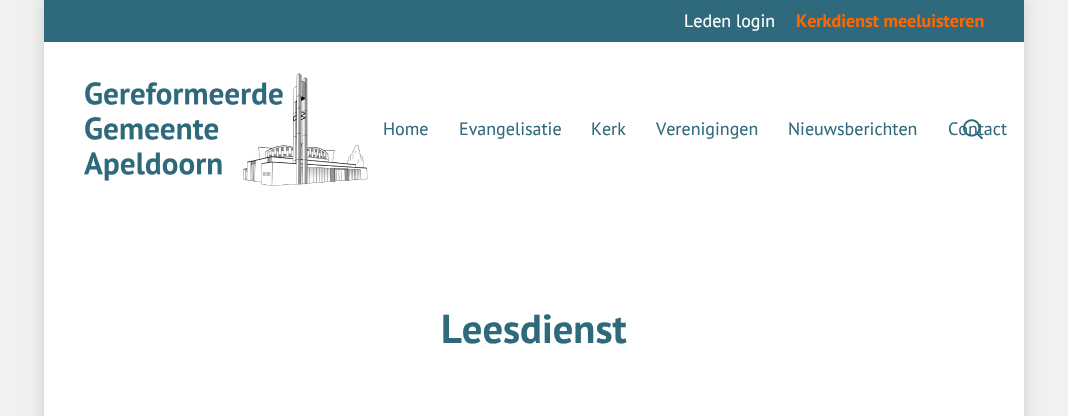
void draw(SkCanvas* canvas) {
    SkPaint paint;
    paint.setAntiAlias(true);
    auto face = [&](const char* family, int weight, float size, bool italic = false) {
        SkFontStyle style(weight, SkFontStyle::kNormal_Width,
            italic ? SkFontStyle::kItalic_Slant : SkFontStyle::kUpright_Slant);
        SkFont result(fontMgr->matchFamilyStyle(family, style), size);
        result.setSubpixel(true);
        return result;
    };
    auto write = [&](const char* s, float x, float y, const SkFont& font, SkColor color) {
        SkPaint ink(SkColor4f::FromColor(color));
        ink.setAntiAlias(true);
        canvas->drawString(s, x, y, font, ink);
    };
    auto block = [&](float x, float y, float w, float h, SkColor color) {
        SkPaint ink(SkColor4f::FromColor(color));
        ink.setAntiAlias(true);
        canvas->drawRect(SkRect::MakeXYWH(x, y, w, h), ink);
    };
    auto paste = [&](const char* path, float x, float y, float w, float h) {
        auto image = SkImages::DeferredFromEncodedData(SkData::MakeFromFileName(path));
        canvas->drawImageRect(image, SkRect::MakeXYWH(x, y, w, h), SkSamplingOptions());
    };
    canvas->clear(SkColorSetRGB(241, 241, 241));
    paint.setColor(SkColorSetARGB(38, 0, 0, 0));
    paint.setMaskFilter(SkMaskFilter::MakeBlur(kNormal_SkBlurStyle, 7.5f));
    canvas->drawRect(SkRect::MakeXYWH(44, 0, 980, 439), paint);
    paint.setMaskFilter(nullptr);
    block(44, 0, 980, 42, SkColorSetRGB(46, 106, 124));
    auto kFont1 = face("PT Sans", 400, 18);
    write("Leden login", 684, 27, kFont1, SK_ColorWHITE);
    auto kFont2 = face("PT Sans", 700, 18);
    write("Kerkdienst meeluisteren", 796, 27, kFont2, SkColorSetRGB(255, 102, 0));
    block(44, 42, 980, 374, SK_ColorWHITE);
    paste("pic1.png", 84, 73, 284, 113);
    write("Contact", 948, 135, kFont1, SkColorSetRGB(46, 106, 124));
    paste("pic2.png", 963, 119, 20, 21);
    write("Home", 383, 135, kFont1, SkColorSetRGB(46, 106, 124));
    write("Evangelisatie", 459, 135, kFont1, SkColorSetRGB(46, 106, 124));
    write("Kerk", 591, 135, kFont1, SkColorSetRGB(46, 106, 124));
    write("Verenigingen", 656, 135, kFont1, SkColorSetRGB(46, 106, 124));
    write("Nieuwsberichten", 788, 135, kFont1, SkColorSetRGB(46, 106, 124));
    auto kFont3 = face("PT Sans", 700, 40.5f);
    write("Leesdienst", 441, 343, kFont3, SkColorSetRGB(46, 106, 124));
}
